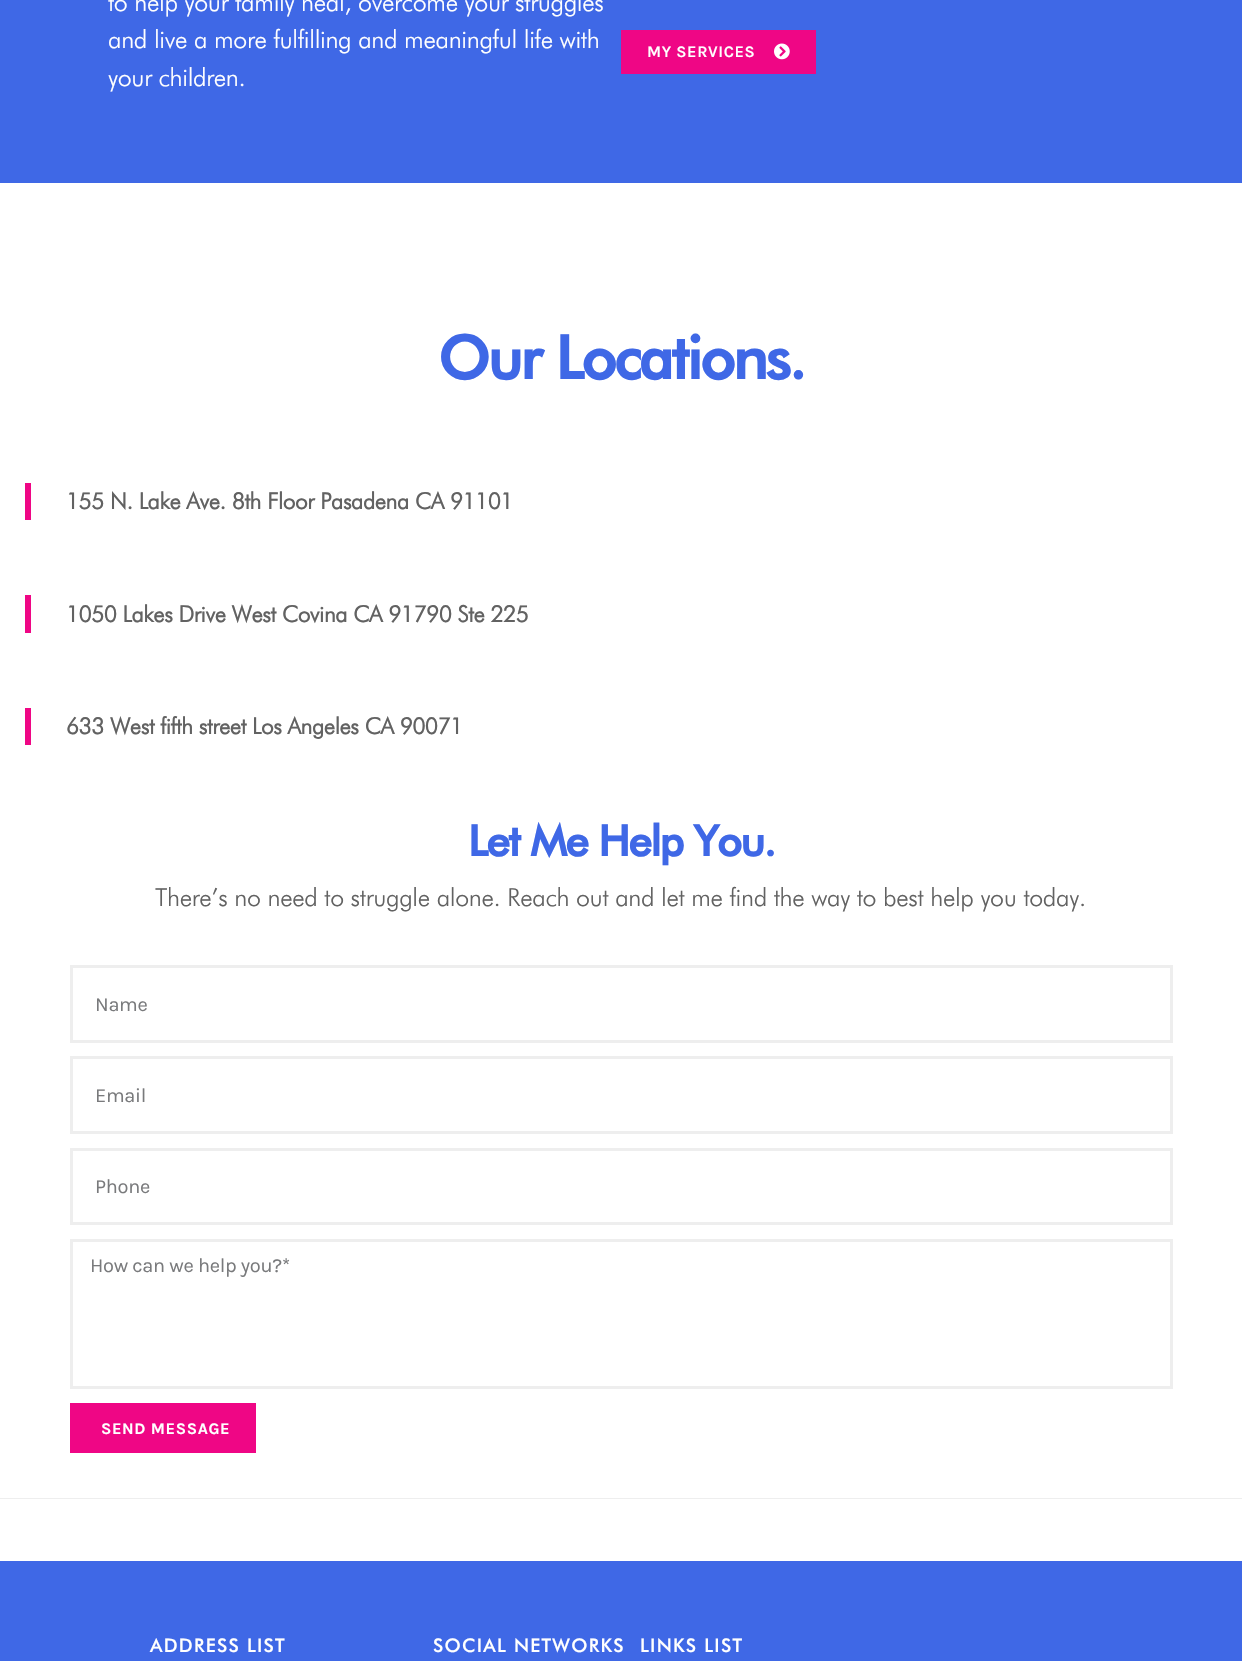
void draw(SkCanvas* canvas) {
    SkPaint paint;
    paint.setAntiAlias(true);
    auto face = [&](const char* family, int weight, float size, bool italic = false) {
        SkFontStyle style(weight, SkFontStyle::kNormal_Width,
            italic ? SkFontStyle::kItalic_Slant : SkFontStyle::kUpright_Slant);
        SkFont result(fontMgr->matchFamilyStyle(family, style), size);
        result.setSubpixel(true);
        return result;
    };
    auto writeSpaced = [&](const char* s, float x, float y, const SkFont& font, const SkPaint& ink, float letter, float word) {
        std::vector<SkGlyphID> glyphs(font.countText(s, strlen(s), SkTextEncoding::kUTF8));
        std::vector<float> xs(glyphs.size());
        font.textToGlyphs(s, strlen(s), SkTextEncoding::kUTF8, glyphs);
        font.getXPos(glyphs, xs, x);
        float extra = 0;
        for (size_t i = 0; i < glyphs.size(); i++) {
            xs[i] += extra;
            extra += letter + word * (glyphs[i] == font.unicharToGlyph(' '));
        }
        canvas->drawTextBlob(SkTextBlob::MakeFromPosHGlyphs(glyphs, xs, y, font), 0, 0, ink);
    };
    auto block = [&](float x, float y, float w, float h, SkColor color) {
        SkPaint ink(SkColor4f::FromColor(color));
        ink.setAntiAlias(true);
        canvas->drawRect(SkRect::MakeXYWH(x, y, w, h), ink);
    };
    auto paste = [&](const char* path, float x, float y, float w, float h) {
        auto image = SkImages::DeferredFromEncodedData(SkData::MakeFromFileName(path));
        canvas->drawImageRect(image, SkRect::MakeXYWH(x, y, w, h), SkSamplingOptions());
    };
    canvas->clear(SK_ColorWHITE);
    block(0, 0, 1242, 183, SkColorSetRGB(63, 104, 230));
    auto kFont1 = face("Futura", 300, 25);
    paint.setColor(SK_ColorWHITE);
    writeSpaced("to help your family heal, overcome your struggles", 108, 11, kFont1, paint, -0.35f, 0);
    writeSpaced("and live a more fulfilling and meaningful life with", 108, 48, kFont1, paint, -0.35f, 0);
    writeSpaced("your children.", 108, 86, kFont1, paint, -0.35f, 0);
    block(621, 30, 195, 44, SkColorSetRGB(239, 6, 133));
    auto kFont2 = face("Karla", 600, 16.25f);
    writeSpaced("MY SERVICES", 647, 57, kFont2, paint, 0.6f, 0);
    paste("pic1.png", 774, 43, 16, 17);
    block(0, 1498, 1242, 1, SkColorSetRGB(238, 238, 238));
    auto kFont3 = face("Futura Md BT", 700, 60);
    paint.setColor(SkColorSetRGB(63, 104, 230));
    writeSpaced("Our Locations.", 438, 379, kFont3, paint, -2.5f, 0);
    block(25, 483, 6, 37, SkColorSetRGB(239, 6, 133));
    auto kFont4 = face("Futura", 700, 22.5f);
    paint.setColor(SkColorSetRGB(98, 98, 98));
    writeSpaced("155 N. Lake Ave. 8th Floor Pasadena CA 91101", 66, 509, kFont4, paint, -0.35f, 0);
    block(25, 595, 6, 38, SkColorSetRGB(239, 6, 133));
    writeSpaced("1050 Lakes Drive West Covina CA 91790 Ste 225", 66, 622, kFont4, paint, -0.35f, 0);
    block(25, 708, 6, 37, SkColorSetRGB(239, 6, 133));
    writeSpaced("633 West fifth street Los Angeles CA 90071", 66, 734, kFont4, paint, -0.35f, 0);
    auto kFont5 = face("Futura Md BT", 700, 42.5f);
    paint.setColor(SkColorSetRGB(63, 104, 230));
    writeSpaced("Let Me Help You.", 468, 856, kFont5, paint, -1.75f, 0);
    paint.setColor(SkColorSetRGB(98, 98, 98));
    writeSpaced("There’s no need to struggle alone. Reach out and let me find the way to best help you today.", 155, 906, kFont1, paint, -0.35f, 0);
    paint.setStyle(SkPaint::kStroke_Style);
    paint.setStrokeWidth(3);
    paint.setColor(SkColorSetRGB(238, 238, 238));
    canvas->drawRect(SkRect::MakeXYWH(71.5f, 966.5f, 1100, 75), paint);
    auto kFont6 = face("Karla", 400, 20);
    paint.setStyle(SkPaint::kFill_Style);
    paint.setColor(SkColorSetRGB(121, 122, 124));
    writeSpaced("Name", 95, 1011, kFont6, paint, -0.3f, 0);
    paint.setStyle(SkPaint::kStroke_Style);
    paint.setColor(SkColorSetRGB(238, 238, 238));
    canvas->drawRect(SkRect::MakeXYWH(71.5f, 1057.5f, 1100, 75), paint);
    paint.setStyle(SkPaint::kFill_Style);
    paint.setColor(SkColorSetRGB(121, 122, 124));
    writeSpaced("Email", 95, 1102, kFont6, paint, -0.3f, 0);
    paint.setStyle(SkPaint::kStroke_Style);
    paint.setColor(SkColorSetRGB(238, 238, 238));
    canvas->drawRect(SkRect::MakeXYWH(71.5f, 1149.5f, 1100, 74), paint);
    paint.setStyle(SkPaint::kFill_Style);
    paint.setColor(SkColorSetRGB(121, 122, 124));
    writeSpaced("Phone", 95, 1193, kFont6, paint, -0.3f, 0);
    paint.setStyle(SkPaint::kStroke_Style);
    paint.setColor(SkColorSetRGB(238, 238, 238));
    canvas->drawRect(SkRect::MakeXYWH(71.5f, 1240.5f, 1100, 147), paint);
    paint.setStyle(SkPaint::kFill_Style);
    paint.setColor(SkColorSetRGB(121, 122, 124));
    writeSpaced("How can we help you?*", 90, 1272, kFont6, paint, -0.3f, 0);
    block(70, 1403, 186, 50, SkColorSetRGB(239, 6, 133));
    auto kFont7 = face("Karla", 700, 16.25f);
    paint.setColor(SK_ColorWHITE);
    writeSpaced("SEND MESSAGE", 101, 1434, kFont7, paint, 0.6f, 0);
    block(0, 1561, 1242, 100, SkColorSetRGB(63, 104, 230));
    auto kFont8 = face("Futura Md BT", 500, 18.75f);
    writeSpaced("ADDRESS LIST", 150, 1652, kFont8, paint, 1.25f, 0);
    writeSpaced("SOCIAL NETWORKS", 433, 1652, kFont8, paint, 1.25f, 0);
    writeSpaced("LINKS LIST", 640, 1652, kFont8, paint, 1.25f, 0);
}
